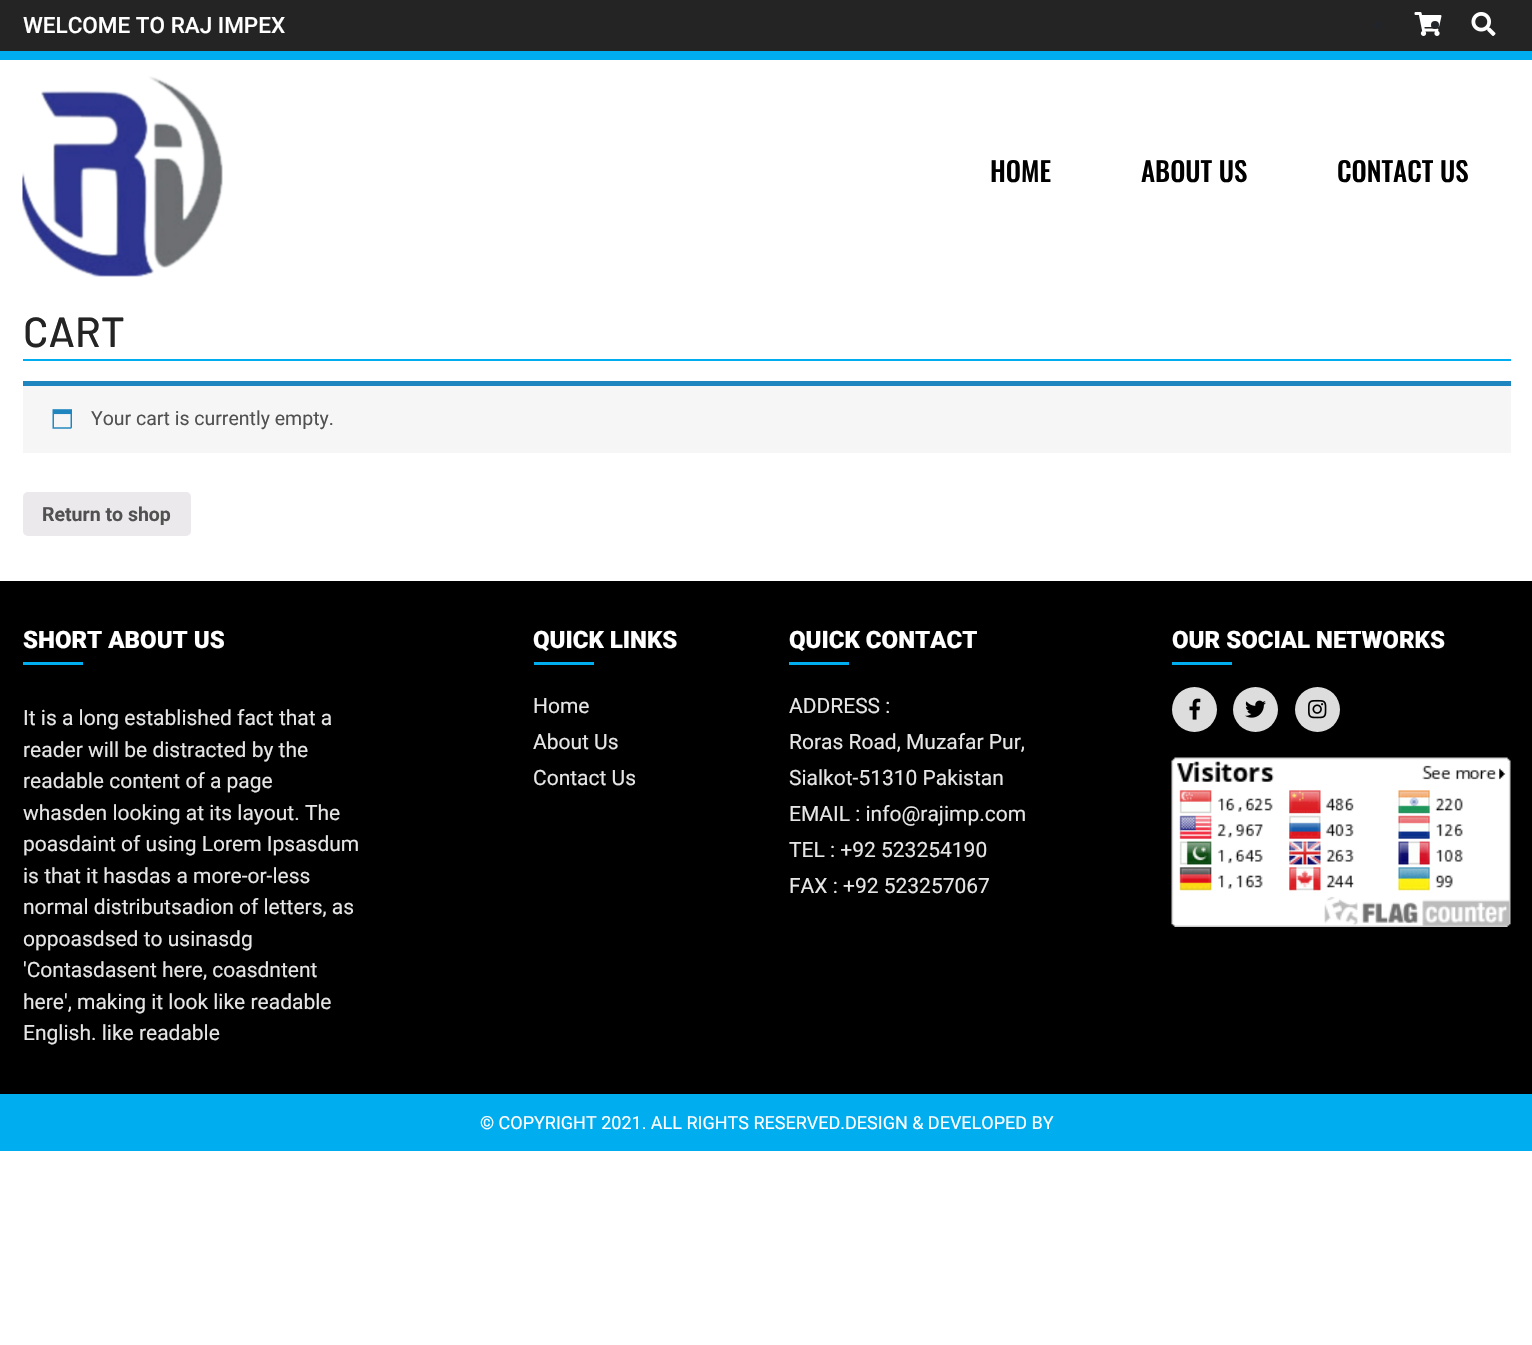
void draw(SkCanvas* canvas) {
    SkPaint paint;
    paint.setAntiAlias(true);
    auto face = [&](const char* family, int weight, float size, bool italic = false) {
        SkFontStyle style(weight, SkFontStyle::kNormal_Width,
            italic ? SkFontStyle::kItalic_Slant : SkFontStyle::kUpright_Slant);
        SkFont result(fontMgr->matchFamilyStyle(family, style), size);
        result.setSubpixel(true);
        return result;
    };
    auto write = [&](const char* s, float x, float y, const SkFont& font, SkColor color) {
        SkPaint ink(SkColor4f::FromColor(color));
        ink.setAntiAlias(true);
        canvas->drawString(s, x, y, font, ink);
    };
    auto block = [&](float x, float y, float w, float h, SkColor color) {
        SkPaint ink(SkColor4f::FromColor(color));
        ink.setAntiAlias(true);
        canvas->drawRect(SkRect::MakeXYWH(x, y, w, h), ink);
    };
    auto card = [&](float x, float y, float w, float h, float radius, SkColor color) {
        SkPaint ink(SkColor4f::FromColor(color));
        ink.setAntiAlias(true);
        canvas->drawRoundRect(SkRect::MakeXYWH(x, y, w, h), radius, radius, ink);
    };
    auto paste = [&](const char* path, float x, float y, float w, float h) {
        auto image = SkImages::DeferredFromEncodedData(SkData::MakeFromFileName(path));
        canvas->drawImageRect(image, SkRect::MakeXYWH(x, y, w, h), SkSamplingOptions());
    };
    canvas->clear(SK_ColorWHITE);
    block(0, 0, 1532, 51, SkColorSetRGB(36, 36, 36));
    auto kFont1 = face("Roboto", 500, 22.5f);
    write("WELCOME TO RAJ IMPEX", 23, 33, kFont1, SK_ColorWHITE);
    paint.setColor(SkColorSetRGB(33, 37, 41));
    canvas->drawCircle(1378, 25, 4, paint);
    paste("pic1.png", 1414, 12, 28, 24);
    canvas->drawCircle(1435, 25, 4, paint);
    paste("pic2.png", 1471, 12, 25, 24);
    block(0, 51, 1532, 9, SkColorSetRGB(0, 173, 239));
    paste("pic3.png", 22, 76, 201, 201);
    auto kFont2 = face("Oswald", 500, 27);
    write("HOME", 990, 182, kFont2, SK_ColorBLACK);
    write("ABOUT US", 1141, 182, kFont2, SK_ColorBLACK);
    write("CONTACT US", 1337, 182, kFont2, SK_ColorBLACK);
    block(23, 359, 1488, 2, SkColorSetRGB(0, 173, 239));
    auto kFont3 = face("Barlow", 500, 42);
    write("CART", 23, 347, kFont3, SkColorSetRGB(36, 36, 36));
    block(23, 386, 1488, 67, SkColorSetRGB(247, 246, 247));
    block(23, 381, 1488, 5, SkColorSetRGB(30, 133, 190));
    paste("pic4.png", 52, 409, 20, 20);
    auto kFont4 = face("Roboto", 400, 19.5f);
    write("Your cart is currently empty.", 91, 425, kFont4, SkColorSetRGB(81, 81, 81));
    card(23, 492, 168, 44, 5, SkColorSetRGB(235, 233, 235));
    auto kFont5 = face("Roboto", 700, 19.5f);
    write("Return to shop", 42, 521, kFont5, SkColorSetRGB(81, 81, 81));
    block(0, 581, 1532, 513, SK_ColorBLACK);
    auto kFont6 = face("Roboto", 900, 24);
    write("SHORT ABOUT US", 23, 648, kFont6, SK_ColorWHITE);
    block(23, 662, 60, 3, SkColorSetRGB(0, 173, 239));
    auto kFont7 = face("Roboto", 400, 21);
    write("It is a long established fact that a", 23, 725, kFont7, SkColorSetRGB(230, 230, 230));
    write("reader will be distracted by the", 23, 757, kFont7, SkColorSetRGB(230, 230, 230));
    write("readable content of a page", 23, 788, kFont7, SkColorSetRGB(230, 230, 230));
    write("whasden looking at its layout. The", 23, 820, kFont7, SkColorSetRGB(230, 230, 230));
    write("poasdaint of using Lorem Ipsasdum", 23, 851, kFont7, SkColorSetRGB(230, 230, 230));
    write("is that it hasdas a more-or-less", 23, 883, kFont7, SkColorSetRGB(230, 230, 230));
    write("normal distributsadion of letters, as", 23, 914, kFont7, SkColorSetRGB(230, 230, 230));
    write("oppoasdsed to usinasdg", 23, 946, kFont7, SkColorSetRGB(230, 230, 230));
    write("'Contasdasent here, coasdntent", 23, 977, kFont7, SkColorSetRGB(230, 230, 230));
    write("here', making it look like readable", 23, 1009, kFont7, SkColorSetRGB(230, 230, 230));
    write("English. like readable", 23, 1040, kFont7, SkColorSetRGB(230, 230, 230));
    write("QUICK LINKS", 533, 648, kFont6, SK_ColorWHITE);
    block(534, 662, 60, 3, SkColorSetRGB(0, 173, 239));
    write("Home", 533, 713, kFont7, SkColorSetRGB(230, 230, 230));
    write("About Us", 533, 749, kFont7, SkColorSetRGB(230, 230, 230));
    write("Contact Us", 533, 785, kFont7, SkColorSetRGB(230, 230, 230));
    write("QUICK CONTACT", 789, 648, kFont6, SK_ColorWHITE);
    block(789, 662, 60, 3, SkColorSetRGB(0, 173, 239));
    write("ADDRESS :", 789, 713, kFont7, SkColorSetRGB(230, 230, 230));
    write("Roras Road, Muzafar Pur,", 789, 749, kFont7, SkColorSetRGB(230, 230, 230));
    write("Sialkot-51310 Pakistan", 789, 785, kFont7, SkColorSetRGB(230, 230, 230));
    write("EMAIL : info@rajimp.com", 789, 821, kFont7, SkColorSetRGB(230, 230, 230));
    write("TEL : +92 523254190", 789, 857, kFont7, SkColorSetRGB(230, 230, 230));
    write("FAX : +92 523257067", 789, 893, kFont7, SkColorSetRGB(230, 230, 230));
    write("OUR SOCIAL NETWORKS", 1172, 648, kFont6, SK_ColorWHITE);
    block(1172, 662, 60, 3, SkColorSetRGB(0, 173, 239));
    paint.setColor(SkColorSetRGB(221, 221, 221));
    canvas->drawCircle(1194.5f, 709.5f, 22.5f, paint);
    paste("pic5.png", 1189, 698, 12, 22);
    canvas->drawCircle(1255.5f, 709.5f, 22.5f, paint);
    paste("pic6.png", 1245, 700, 21, 18);
    canvas->drawCircle(1317.5f, 709.5f, 22.5f, paint);
    paste("pic7.png", 1308, 699, 19, 20);
    paste("pic8.png", 1171, 757, 340, 170);
    block(0, 1094, 1532, 57, SkColorSetRGB(0, 173, 239));
    auto kFont8 = face("Roboto", 400, 18);
    write("© COPYRIGHT 2021. ALL RIGHTS RESERVED.DESIGN & DEVELOPED BY", 480, 1129, kFont8, SK_ColorWHITE);
}
